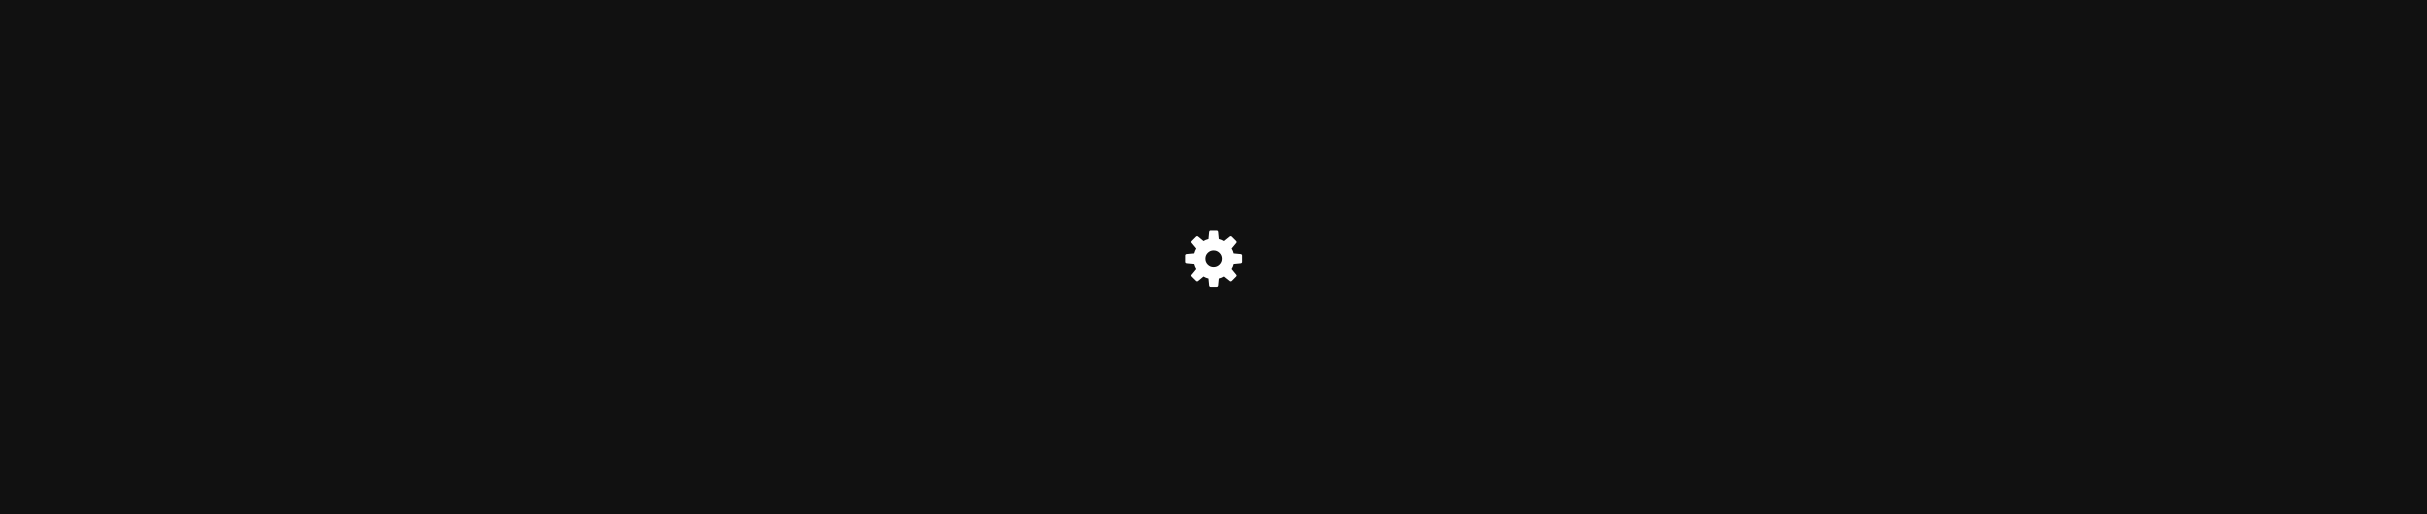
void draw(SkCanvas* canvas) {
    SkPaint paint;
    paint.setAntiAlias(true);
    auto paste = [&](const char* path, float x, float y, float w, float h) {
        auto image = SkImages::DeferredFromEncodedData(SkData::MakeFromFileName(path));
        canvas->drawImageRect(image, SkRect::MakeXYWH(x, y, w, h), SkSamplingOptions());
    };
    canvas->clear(SkColorSetRGB(17, 17, 17));
    paste("pic1.png", 1185, 230, 58, 58);
}
